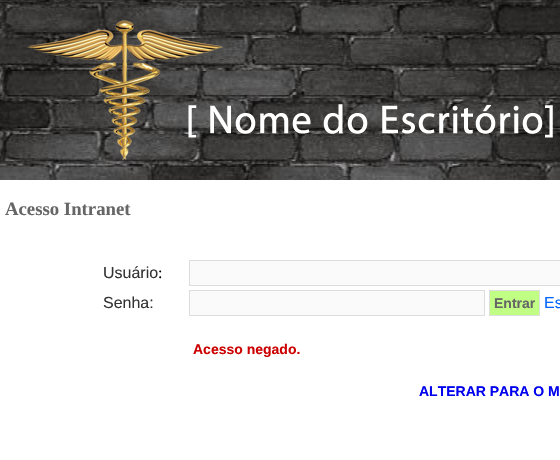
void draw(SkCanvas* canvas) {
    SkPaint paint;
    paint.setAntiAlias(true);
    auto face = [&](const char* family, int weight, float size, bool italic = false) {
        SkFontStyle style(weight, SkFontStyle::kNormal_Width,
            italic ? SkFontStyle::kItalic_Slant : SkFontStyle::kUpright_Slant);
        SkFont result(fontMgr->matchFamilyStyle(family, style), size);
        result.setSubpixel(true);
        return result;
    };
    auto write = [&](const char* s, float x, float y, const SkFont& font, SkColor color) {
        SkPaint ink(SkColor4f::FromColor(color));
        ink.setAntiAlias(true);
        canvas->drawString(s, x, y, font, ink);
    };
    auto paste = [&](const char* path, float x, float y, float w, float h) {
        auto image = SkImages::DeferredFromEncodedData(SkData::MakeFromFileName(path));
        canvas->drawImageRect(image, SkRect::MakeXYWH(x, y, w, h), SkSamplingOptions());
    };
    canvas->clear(SK_ColorWHITE);
    paste("pic1.png", 0, 0, 560, 180);
    paste("pic2.png", 26, 20, 527, 140);
    auto kFont1 = face("Liberation Serif", 700, 18.75f);
    write("Acesso Intranet", 5, 215, kFont1, SkColorSetRGB(102, 102, 102));
    auto kFont2 = face("Liberation Sans", 400, 16);
    write("Usuário", 103, 278, kFont2, SkColorSetRGB(51, 51, 51));
    auto kFont3 = face("Liberation Serif", 400, 16);
    write(":", 158, 278, kFont3, SK_ColorBLACK);
    paint.setColor(SkColorSetRGB(250, 250, 250));
    canvas->drawRect(SkRect::MakeXYWH(189.5f, 260.5f, 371, 25), paint);
    paint.setStyle(SkPaint::kStroke_Style);
    paint.setStrokeWidth(1);
    paint.setColor(SkColorSetRGB(221, 221, 221));
    canvas->drawRect(SkRect::MakeXYWH(189.5f, 260.5f, 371, 25), paint);
    write("Senha:", 103, 308, kFont2, SkColorSetRGB(51, 51, 51));
    paint.setStyle(SkPaint::kFill_Style);
    paint.setColor(SkColorSetRGB(250, 250, 250));
    canvas->drawRect(SkRect::MakeXYWH(189.5f, 290.5f, 295, 25), paint);
    paint.setStyle(SkPaint::kStroke_Style);
    paint.setColor(SkColorSetRGB(221, 221, 221));
    canvas->drawRect(SkRect::MakeXYWH(189.5f, 290.5f, 295, 25), paint);
    paint.setStyle(SkPaint::kFill_Style);
    paint.setColor(SkColorSetRGB(193, 255, 132));
    canvas->drawRect(SkRect::MakeXYWH(489.5f, 290.5f, 50, 25), paint);
    paint.setStyle(SkPaint::kStroke_Style);
    paint.setColor(SkColorSetRGB(221, 221, 221));
    canvas->drawRect(SkRect::MakeXYWH(489.5f, 290.5f, 50, 25), paint);
    auto kFont4 = face("Liberation Sans", 700, 14);
    write("Entrar", 494, 308, kFont4, SkColorSetRGB(102, 102, 102));
    write("Es", 544, 308, kFont2, SkColorSetRGB(0, 102, 255));
    write("Acesso negado.", 193, 354, kFont4, SkColorSetRGB(204, 0, 0));
    write("ALTERAR PARA O M", 419, 396, kFont4, SkColorSetRGB(0, 0, 238));
}
